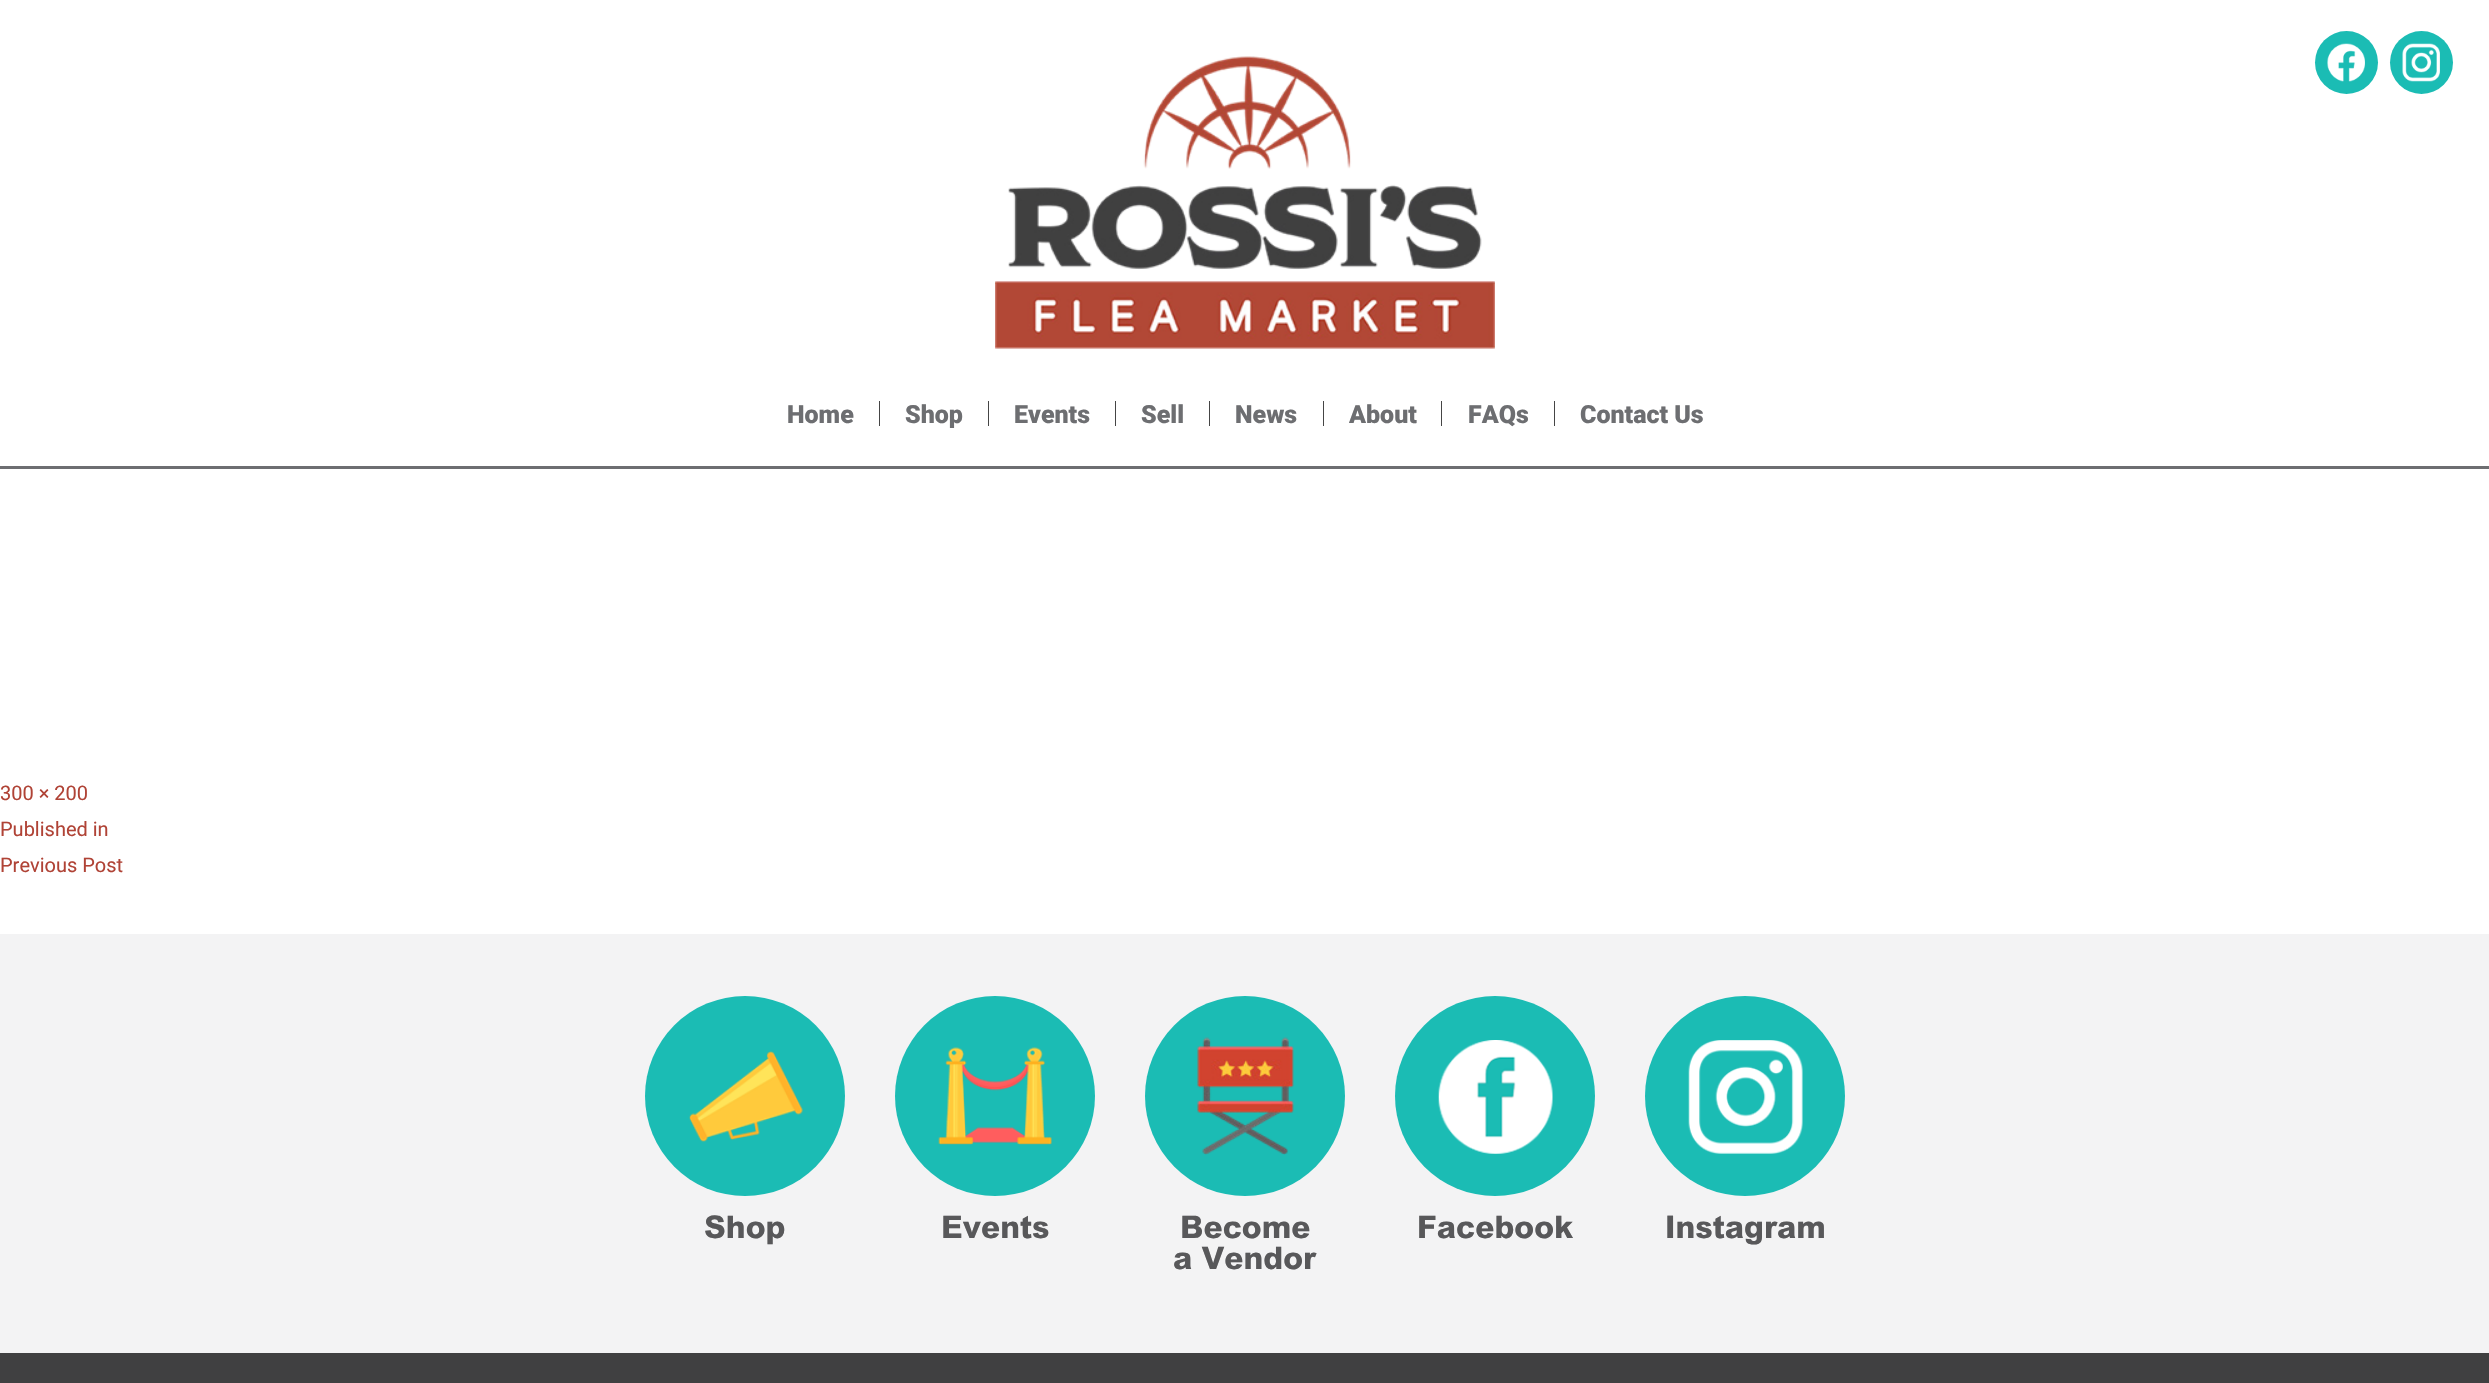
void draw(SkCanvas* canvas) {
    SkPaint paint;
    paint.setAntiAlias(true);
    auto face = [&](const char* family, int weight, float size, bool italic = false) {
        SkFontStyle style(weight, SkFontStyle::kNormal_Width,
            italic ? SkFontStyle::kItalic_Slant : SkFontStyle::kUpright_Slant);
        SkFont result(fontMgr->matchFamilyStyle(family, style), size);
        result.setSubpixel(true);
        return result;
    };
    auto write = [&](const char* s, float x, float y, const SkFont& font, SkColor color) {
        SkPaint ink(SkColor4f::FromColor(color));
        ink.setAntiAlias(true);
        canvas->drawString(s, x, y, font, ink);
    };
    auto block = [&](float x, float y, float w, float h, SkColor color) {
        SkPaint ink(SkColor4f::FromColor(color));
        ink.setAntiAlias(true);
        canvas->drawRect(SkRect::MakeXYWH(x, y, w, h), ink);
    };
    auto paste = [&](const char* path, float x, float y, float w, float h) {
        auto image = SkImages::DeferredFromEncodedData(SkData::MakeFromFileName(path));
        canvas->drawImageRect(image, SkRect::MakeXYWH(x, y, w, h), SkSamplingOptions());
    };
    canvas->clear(SK_ColorWHITE);
    paint.setColor(SkColorSetRGB(27, 188, 180));
    canvas->drawCircle(2346.5f, 62.5f, 31.5f, paint);
    paste("pic1.png", 2327, 43, 38, 39);
    canvas->drawCircle(2421.5f, 62.5f, 31.5f, paint);
    paste("pic2.png", 2402, 43, 38, 39);
    paste("pic3.png", 995, 56, 500, 293);
    auto kFont1 = face("Roboto", 900, 25);
    write("Home", 787, 423, kFont1, SkColorSetRGB(109, 110, 113));
    block(879, 401, 1, 25, SkColorSetRGB(69, 69, 69));
    write("Shop", 905, 423, kFont1, SkColorSetRGB(109, 110, 113));
    block(988, 401, 1, 25, SkColorSetRGB(69, 69, 69));
    write("Events", 1014, 423, kFont1, SkColorSetRGB(109, 110, 113));
    block(1115, 401, 1, 25, SkColorSetRGB(69, 69, 69));
    write("Sell", 1141, 423, kFont1, SkColorSetRGB(109, 110, 113));
    block(1209, 401, 1, 25, SkColorSetRGB(69, 69, 69));
    write("News", 1235, 423, kFont1, SkColorSetRGB(109, 110, 113));
    block(1323, 401, 1, 25, SkColorSetRGB(69, 69, 69));
    write("About", 1349, 423, kFont1, SkColorSetRGB(109, 110, 113));
    block(1441, 401, 1, 25, SkColorSetRGB(69, 69, 69));
    write("FAQs", 1468, 423, kFont1, SkColorSetRGB(109, 110, 113));
    block(1554, 401, 1, 25, SkColorSetRGB(69, 69, 69));
    write("Contact Us", 1580, 423, kFont1, SkColorSetRGB(109, 110, 113));
    block(0, 466, 2489, 3, SkColorSetRGB(109, 110, 113));
    auto kFont2 = face("Roboto", 400, 20);
    write("300 × 200", 0, 800, kFont2, SkColorSetRGB(176, 67, 54));
    write("Published in", 0, 836, kFont2, SkColorSetRGB(176, 67, 54));
    write("Previous Post", 0, 872, kFont2, SkColorSetRGB(176, 67, 54));
    block(0, 934, 2489, 419, SkColorSetRGB(243, 243, 244));
    canvas->drawCircle(745, 1096, 100, paint);
    paste("pic4.png", 689, 1051, 114, 91);
    auto kFont3 = face("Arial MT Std", 800, 31.25f);
    write("Shop", 704, 1238, kFont3, SkColorSetRGB(88, 88, 90));
    canvas->drawCircle(995, 1096, 100, paint);
    paste("pic5.png", 938, 1047, 114, 98);
    write("Events", 941, 1238, kFont3, SkColorSetRGB(88, 88, 90));
    canvas->drawCircle(1245, 1096, 100, paint);
    paste("pic6.png", 1197, 1037, 97, 118);
    write("Become", 1180, 1238, kFont3, SkColorSetRGB(88, 88, 90));
    write("a Vendor", 1173, 1269, kFont3, SkColorSetRGB(88, 88, 90));
    canvas->drawCircle(1495, 1096, 100, paint);
    paste("pic7.png", 1438, 1040, 115, 114);
    write("Facebook", 1417, 1238, kFont3, SkColorSetRGB(88, 88, 90));
    canvas->drawCircle(1745, 1096, 100, paint);
    paste("pic8.png", 1688, 1040, 115, 114);
    write("Instagram", 1665, 1238, kFont3, SkColorSetRGB(88, 88, 90));
    block(0, 1353, 2489, 30, SkColorSetRGB(64, 64, 65));
}
